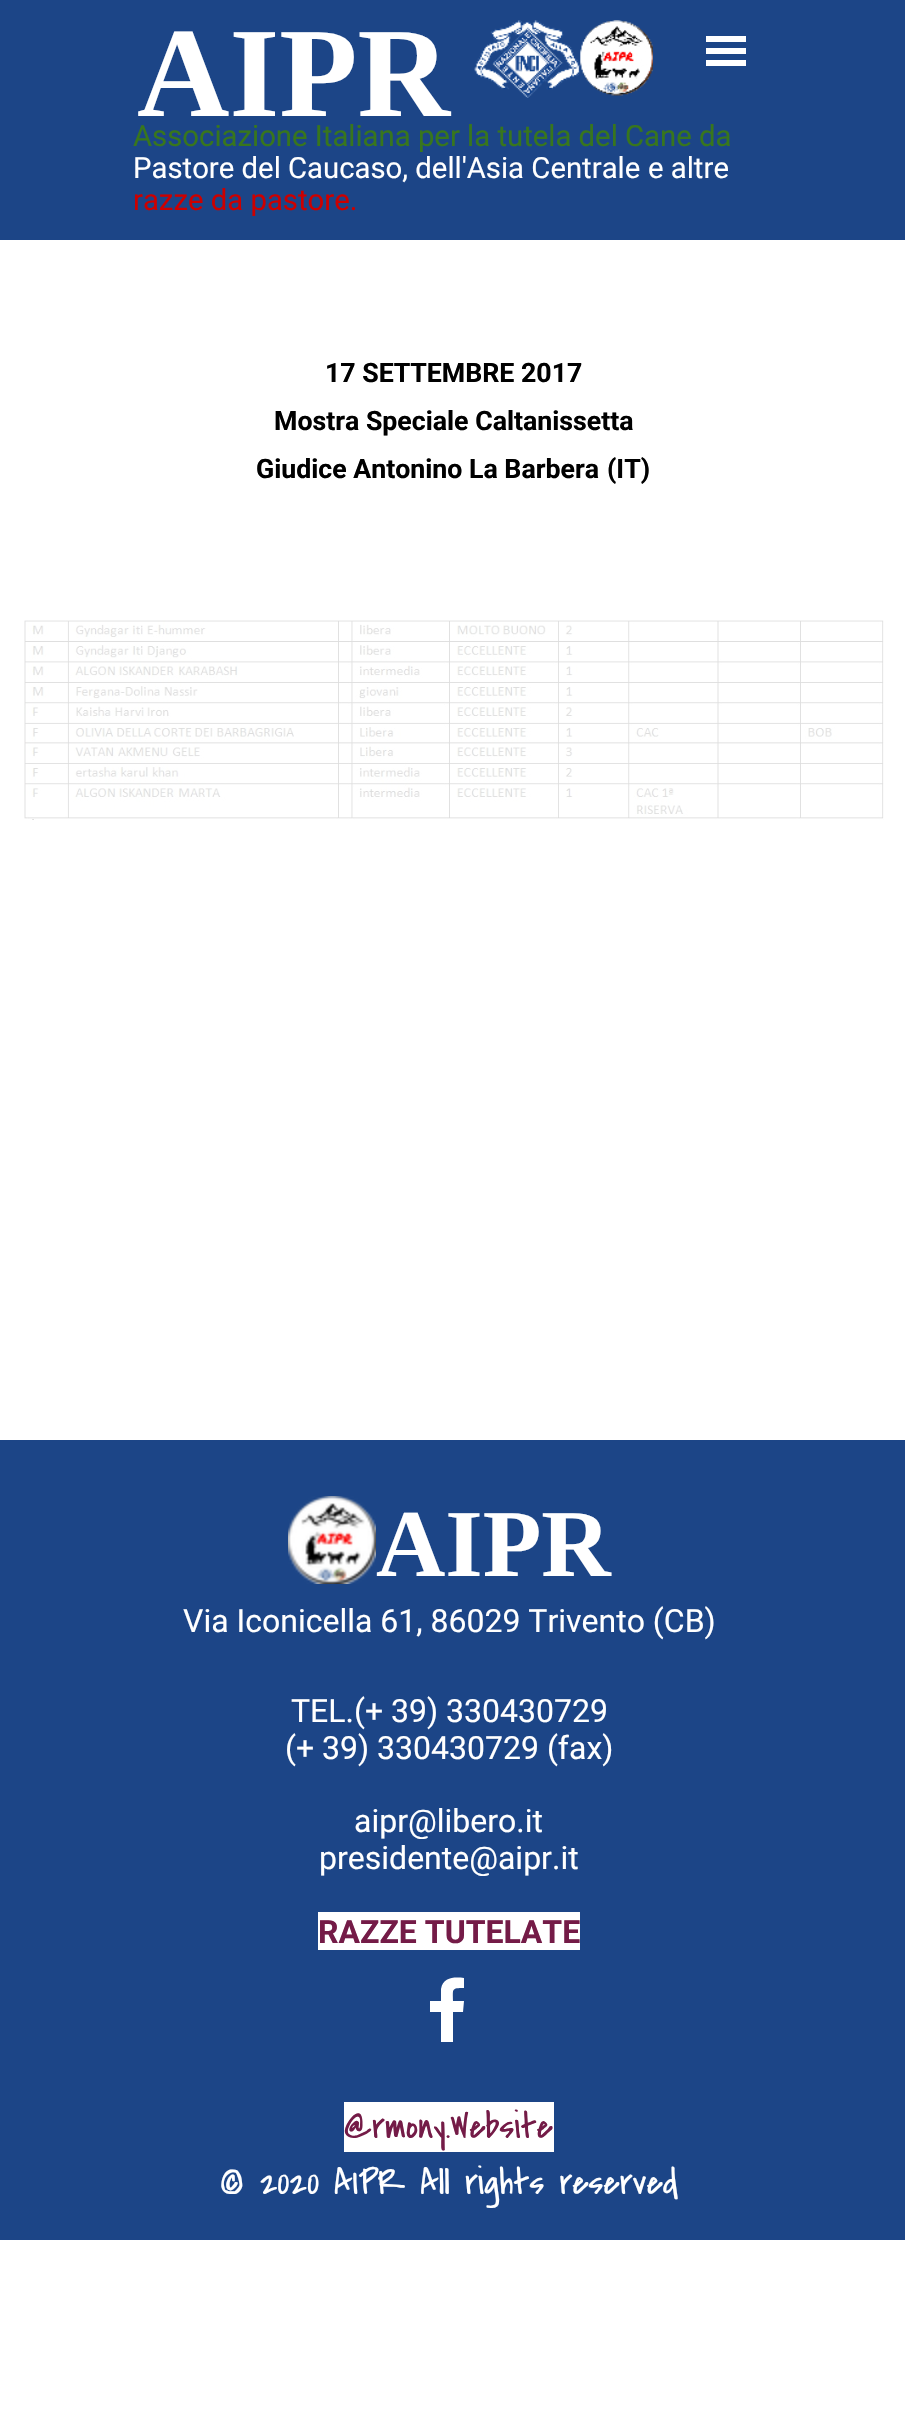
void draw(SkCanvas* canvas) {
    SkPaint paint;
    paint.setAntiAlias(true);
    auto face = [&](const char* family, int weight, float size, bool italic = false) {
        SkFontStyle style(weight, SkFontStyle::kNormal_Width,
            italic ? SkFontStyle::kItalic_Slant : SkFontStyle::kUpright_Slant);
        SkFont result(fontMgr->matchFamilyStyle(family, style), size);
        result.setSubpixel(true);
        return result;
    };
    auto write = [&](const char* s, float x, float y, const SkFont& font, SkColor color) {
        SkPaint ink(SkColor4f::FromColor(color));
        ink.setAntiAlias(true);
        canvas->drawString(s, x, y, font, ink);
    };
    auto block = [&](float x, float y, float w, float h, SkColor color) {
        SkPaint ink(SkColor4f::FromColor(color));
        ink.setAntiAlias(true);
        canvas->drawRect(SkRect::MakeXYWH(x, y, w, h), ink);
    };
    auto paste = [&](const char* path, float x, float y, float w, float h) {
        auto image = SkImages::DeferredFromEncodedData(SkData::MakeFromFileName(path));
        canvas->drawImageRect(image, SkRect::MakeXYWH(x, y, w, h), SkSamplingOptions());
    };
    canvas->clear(SK_ColorWHITE);
    block(0, 0, 905, 240, SkColorSetRGB(28, 69, 135));
    auto kFont1 = face("Liberation Serif", 700, 128);
    write("AIPR", 137, 116, kFont1, SK_ColorWHITE);
    paste("pic1.png", 474, 20, 179, 78);
    block(706, 36, 40, 6, SK_ColorWHITE);
    block(706, 48, 40, 6, SK_ColorWHITE);
    block(706, 60, 40, 6, SK_ColorWHITE);
    auto kFont2 = face("Roboto", 400, 29.3f);
    write("Associazione Italiana per la tutela del Cane da", 133, 146, kFont2, SkColorSetRGB(56, 118, 29));
    write("Pastore del Caucaso, dell'Asia Centrale", 133, 178, kFont2, SK_ColorWHITE);
    write("e altre", 648, 178, kFont2, SK_ColorWHITE);
    write("razze da pastore.", 133, 210, kFont2, SkColorSetRGB(204, 0, 0));
    auto kFont3 = face("Roboto", 700, 26.7f);
    write("17 SETTEMBRE 2017", 325, 382, kFont3, SK_ColorBLACK);
    write("Mostra Speciale Caltanissetta", 274, 430, kFont3, SK_ColorBLACK);
    write("Giudice Antonino La Barbera", 256, 478, kFont3, SK_ColorBLACK);
    write("(IT)", 607, 478, kFont3, SK_ColorBLACK);
    paste("pic2.png", 24, 620, 860, 200);
    block(0, 1440, 905, 800, SkColorSetRGB(28, 69, 135));
    paste("pic3.png", 288, 1496, 88, 88);
    auto kFont4 = face("Liberation Serif", 700, 96);
    write("AIPR", 376, 1576, kFont4, SK_ColorWHITE);
    auto kFont5 = face("Roboto", 400, 32);
    write("Via Iconicella 61, 86029 Trivento (CB)", 183, 1632, kFont5, SK_ColorWHITE);
    write("TEL.(+ 39) 330430729", 291, 1722, kFont5, SK_ColorWHITE);
    write("(+ 39) 330430729 (fax)", 285, 1759, kFont5, SK_ColorWHITE);
    write("aipr@libero.it", 354, 1832, kFont5, SK_ColorWHITE);
    write("presidente@aipr.it", 319, 1869, kFont5, SK_ColorWHITE);
    block(318, 1912, 262, 38, SK_ColorWHITE);
    auto kFont6 = face("Roboto", 700, 32);
    write("RAZZE TUTELATE", 318, 1943, kFont6, SkColorSetRGB(116, 27, 71));
    paint.setColor(SK_ColorWHITE);
    canvas->drawPath(SkPathBuilder().moveTo(453, 2042).lineTo(453, 2012).lineTo(463, 2012).lineTo(464, 2001).lineTo(453, 2001).cubicTo(453, 1989, 451, 1988, 464, 1988).lineTo(464, 1978).cubicTo(454, 1977, 443, 1977, 441, 1989).lineTo(441, 2001).lineTo(430, 2001).lineTo(430, 2012).lineTo(441, 2012).lineTo(441, 2042).close().detach(), paint);
    block(344, 2102, 210, 50, SK_ColorWHITE);
    auto kFont7 = face("Covered By Your Grace", 400, 37.25f);
    write("@rmony.Website", 344, 2138, kFont7, SkColorSetRGB(116, 27, 71));
    write("© 2020 AIPR All rights reserved", 219, 2194, kFont7, SK_ColorWHITE);
}
